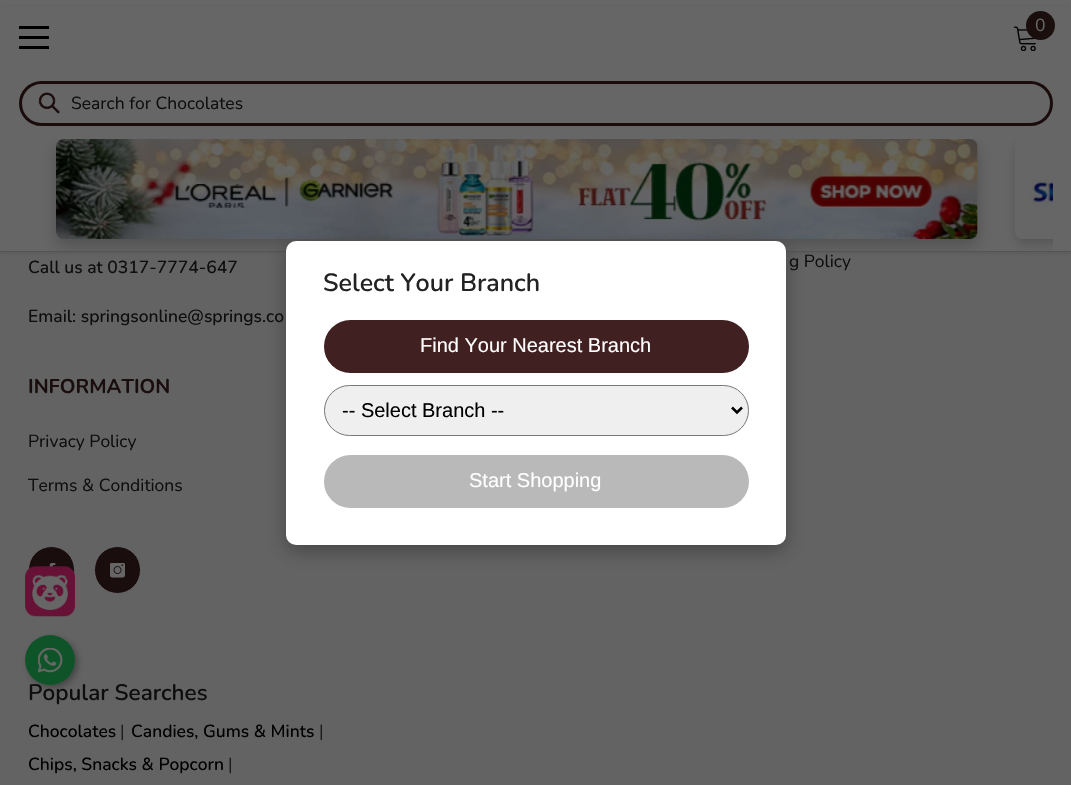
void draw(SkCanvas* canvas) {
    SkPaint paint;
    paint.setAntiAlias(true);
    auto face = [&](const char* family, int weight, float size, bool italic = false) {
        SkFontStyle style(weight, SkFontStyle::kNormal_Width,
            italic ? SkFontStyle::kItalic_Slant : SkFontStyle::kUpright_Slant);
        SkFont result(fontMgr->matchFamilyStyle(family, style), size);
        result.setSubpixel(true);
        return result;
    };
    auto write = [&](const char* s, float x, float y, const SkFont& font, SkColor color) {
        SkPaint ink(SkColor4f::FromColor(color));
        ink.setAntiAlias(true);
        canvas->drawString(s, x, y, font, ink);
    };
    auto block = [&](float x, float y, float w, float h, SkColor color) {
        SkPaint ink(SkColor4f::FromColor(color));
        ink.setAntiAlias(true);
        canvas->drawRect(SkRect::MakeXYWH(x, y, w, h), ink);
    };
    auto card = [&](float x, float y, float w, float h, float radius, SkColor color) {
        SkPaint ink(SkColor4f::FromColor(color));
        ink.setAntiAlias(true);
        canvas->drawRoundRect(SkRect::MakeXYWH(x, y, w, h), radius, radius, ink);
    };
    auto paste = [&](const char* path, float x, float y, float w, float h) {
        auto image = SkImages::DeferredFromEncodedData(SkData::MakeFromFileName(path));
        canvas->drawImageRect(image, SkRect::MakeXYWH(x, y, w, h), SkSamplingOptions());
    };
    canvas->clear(SkColorSetRGB(102, 102, 102));
    block(0, 251, 1071, 1, SkColorSetRGB(91, 91, 91));
    block(0, 252, 1071, 533, SkColorSetRGB(99, 99, 99));
    paint.setColor(SkColorSetARGB(26, 0, 0, 0));
    paint.setMaskFilter(SkMaskFilter::MakeBlur(kNormal_SkBlurStyle, 2));
    canvas->drawRect(SkRect::MakeXYWH(0, 8, 1071, 245), paint);
    paint.setMaskFilter(nullptr);
    block(0, 7, 1071, 244, SkColorSetRGB(102, 102, 102));
    block(19, 36, 30, 3, SK_ColorBLACK);
    block(19, 26, 30, 3, SK_ColorBLACK);
    block(19, 46, 30, 3, SK_ColorBLACK);
    paste("pic1.png", 1013, 26, 23, 25);
    {
        const SkColor colors[] = {SkColorSetRGB(94, 39, 20), SkColorSetRGB(26, 13, 13), SkColorSetRGB(26, 16, 14)};
        const float stops[] = {0, 0.01f, 1};
        const SkPoint ends[] = {{1026, 26}, {1055, 26}};
        paint.setShader(SkGradientShader::MakeLinear(ends, colors, stops, 3, SkTileMode::kClamp));
        paint.setAlpha(255);
    }
    canvas->drawCircle(1040.5f, 25.5f, 14.5f, paint);
    auto kFont1 = face("Nunito", 400, 17.5f);
    write("0", 1035, 31, kFont1, SkColorSetRGB(102, 102, 102));
    paint.setStyle(SkPaint::kStroke_Style);
    paint.setStrokeWidth(3);
    paint.setShader(nullptr);
    paint.setColor(SkColorSetRGB(26, 12, 12));
    canvas->drawRoundRect(SkRect::MakeXYWH(20.5f, 82.5f, 1031, 42), 21, 21, paint);
    paste("pic2.png", 38, 92, 22, 22);
    write("Search for Chocolates", 71, 109, kFont1, SkColorSetRGB(14, 14, 14));
    canvas->save();
    canvas->clipRect(SkRect::MakeXYWH(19, 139, 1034, 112));
    paint.setStyle(SkPaint::kFill_Style);
    paint.setColor(SkColorSetARGB(51, 0, 0, 0));
    paint.setMaskFilter(SkMaskFilter::MakeBlur(kNormal_SkBlurStyle, 7.5f));
    canvas->drawRoundRect(SkRect::MakeXYWH(56, 146, 922, 100), 8, 8, paint);
    paint.setMaskFilter(nullptr);
    canvas->restore();
    paste("pic3.png", 56, 139, 922, 100);
    canvas->save();
    canvas->clipRect(SkRect::MakeXYWH(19, 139, 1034, 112));
    canvas->clipPath(SkPathBuilder(SkPathFillType::kEvenOdd).moveTo(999, 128).lineTo(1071, 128).lineTo(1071, 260).lineTo(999, 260).close().moveTo(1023, 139).lineTo(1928, 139).cubicTo(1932.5f, 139, 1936, 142.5f, 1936, 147).lineTo(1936, 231).cubicTo(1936, 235.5f, 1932.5f, 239, 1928, 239).lineTo(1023, 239).cubicTo(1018.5f, 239, 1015, 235.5f, 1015, 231).lineTo(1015, 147).cubicTo(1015, 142.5f, 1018.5f, 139, 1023, 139).close().detach(), true);
    paint.setColor(SkColorSetARGB(38, 0, 0, 0));
    paint.setMaskFilter(SkMaskFilter::MakeBlur(kNormal_SkBlurStyle, 5));
    canvas->drawRoundRect(SkRect::MakeXYWH(1015, 144, 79, 100), 8, 8, paint);
    paint.setMaskFilter(nullptr);
    canvas->restore();
    paste("pic4.png", 1015, 178, 38, 61);
    auto kFont2 = face("Nunito", 500, 17.5f);
    write("Call us at 0317-7774-647", 28, 273, kFont2, SkColorSetRGB(14, 14, 14));
    write("Email: springsonline@springs.co", 28, 322, kFont2, SkColorSetRGB(14, 14, 14));
    write("g Policy", 789, 267, kFont1, SkColorSetRGB(14, 14, 14));
    auto kFont3 = face("Nunito", 700, 20);
    write("INFORMATION", 28, 393, kFont3, SkColorSetRGB(26, 13, 13));
    write("Privacy Policy", 28, 447, kFont1, SkColorSetRGB(14, 14, 14));
    write("Terms & Conditions", 28, 491, kFont1, SkColorSetRGB(14, 14, 14));
    paint.setColor(SkColorSetRGB(26, 13, 13));
    canvas->drawRoundRect(SkRect::MakeXYWH(28.5f, 546.5f, 46, 47), 23, 23, paint);
    paint.setStyle(SkPaint::kStroke_Style);
    paint.setStrokeWidth(1);
    paint.setColor(SkColorSetRGB(102, 102, 102));
    canvas->drawRoundRect(SkRect::MakeXYWH(28.5f, 546.5f, 46, 47), 23, 23, paint);
    paste("pic5.png", 49, 563, 7, 4);
    paint.setStyle(SkPaint::kFill_Style);
    paint.setColor(SkColorSetRGB(26, 13, 13));
    canvas->drawRoundRect(SkRect::MakeXYWH(94.5f, 546.5f, 46, 47), 23, 23, paint);
    paint.setStyle(SkPaint::kStroke_Style);
    paint.setColor(SkColorSetRGB(102, 102, 102));
    canvas->drawRoundRect(SkRect::MakeXYWH(94.5f, 546.5f, 46, 47), 23, 23, paint);
    paste("pic6.png", 110, 563, 15, 15);
    auto kFont4 = face("Nunito", 600, 22.5f);
    write("Popular Searches", 28, 700, kFont4, SkColorSetRGB(14, 14, 14));
    write("Chocolates", 28, 737, kFont2, SK_ColorBLACK);
    auto kFont5 = face("Nunito", 300, 17.5f);
    write("|", 120, 737, kFont5, SkColorSetRGB(14, 14, 14));
    write("Candies, Gums & Mints", 131, 737, kFont2, SK_ColorBLACK);
    write("|", 319, 737, kFont5, SkColorSetRGB(14, 14, 14));
    write("Chips, Snacks & Popcorn", 28, 770, kFont2, SK_ColorBLACK);
    write("|", 228, 770, kFont5, SkColorSetRGB(14, 14, 14));
    paint.setStyle(SkPaint::kFill_Style);
    paint.setColor(SkColorSetARGB(77, 0, 0, 0));
    paint.setMaskFilter(SkMaskFilter::MakeBlur(kNormal_SkBlurStyle, 9.5f));
    canvas->drawRoundRect(SkRect::MakeXYWH(286, 248, 500, 303), 10, 10, paint);
    paint.setMaskFilter(nullptr);
    card(286, 241, 500, 304, 10, SK_ColorWHITE);
    auto kFont6 = face("Nunito", 600, 25);
    write("Select Your Branch", 323, 291, kFont6, SkColorSetRGB(35, 35, 35));
    card(324, 320, 425, 53, 26.5f, SkColorSetRGB(64, 32, 32));
    auto kFont7 = face("Liberation Sans", 400, 20);
    write("Find Your Nearest Branch", 420, 352, kFont7, SK_ColorWHITE);
    paint.setColor(SkColorSetRGB(239, 239, 239));
    canvas->drawRoundRect(SkRect::MakeXYWH(324.5f, 385.5f, 424, 50), 25, 25, paint);
    paint.setStyle(SkPaint::kStroke_Style);
    paint.setColor(SkColorSetRGB(118, 118, 118));
    canvas->drawRoundRect(SkRect::MakeXYWH(324.5f, 385.5f, 424, 50), 25, 25, paint);
    paint.setStrokeWidth(2.5f);
    paint.setColor(SK_ColorBLACK);
    canvas->drawPath(SkPathBuilder().moveTo(732, 407.5f).lineTo(737, 412.5f).lineTo(742, 407.5f).detach(), paint);
    write("-- Select Branch --", 342, 417, kFont7, SK_ColorBLACK);
    card(324, 455, 425, 53, 26.5f, SkColorSetRGB(185, 185, 185));
    write("Start Shopping", 469, 487, kFont7, SK_ColorWHITE);
    paste("pic7.png", 25, 566, 50, 51);
    paint.setStyle(SkPaint::kFill_Style);
    paint.setColor(SkColorSetARGB(77, 0, 0, 0));
    paint.setMaskFilter(SkMaskFilter::MakeBlur(kNormal_SkBlurStyle, 3));
    canvas->drawRoundRect(SkRect::MakeXYWH(28, 638, 50, 50), 25, 25, paint);
    paint.setMaskFilter(nullptr);
    paint.setColor(SkColorSetRGB(15, 84, 41));
    canvas->drawCircle(50, 660, 25, paint);
    paste("pic8.png", 38, 648, 25, 25);
}
